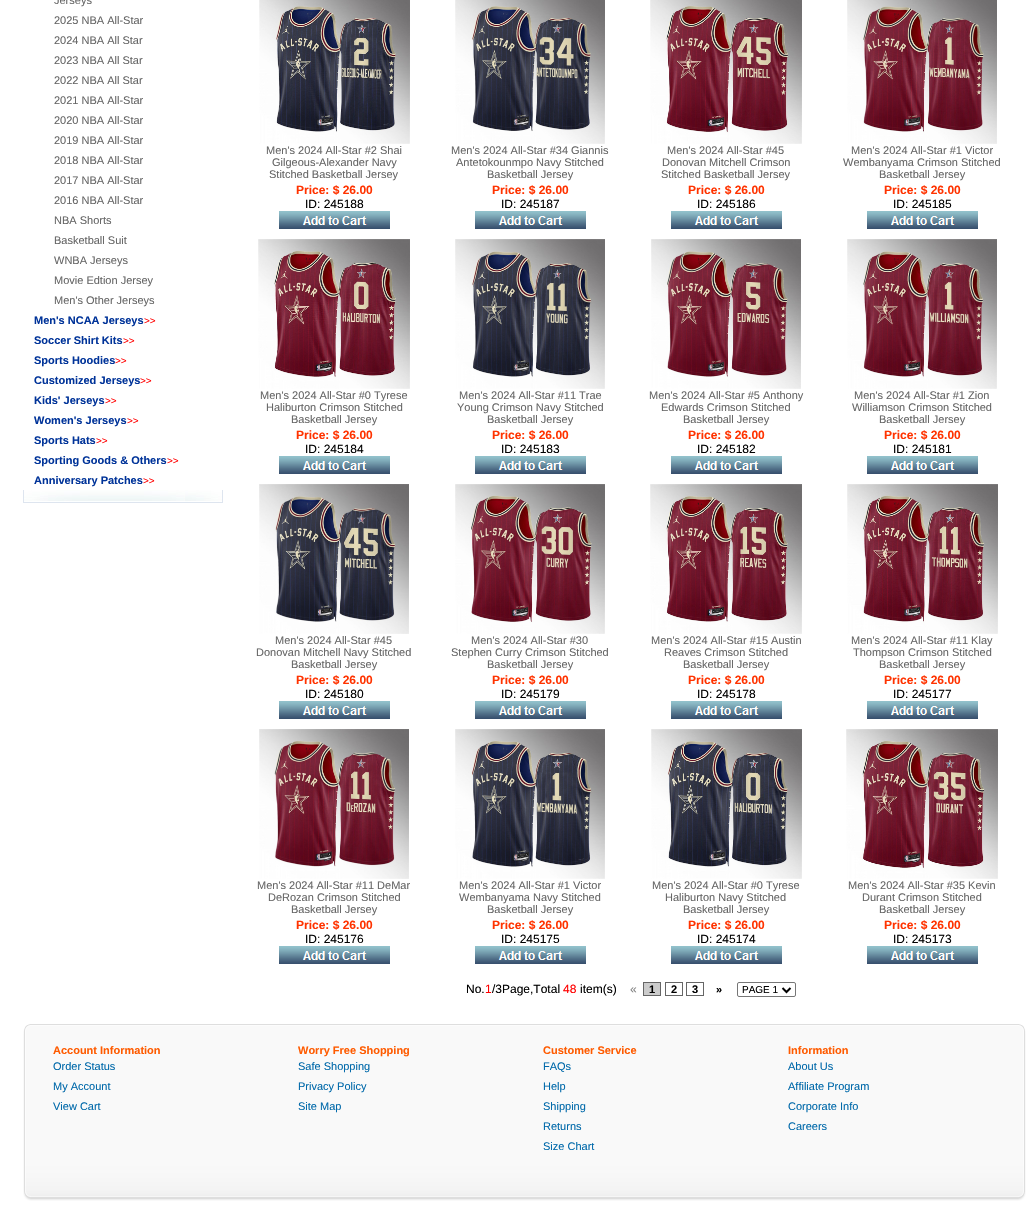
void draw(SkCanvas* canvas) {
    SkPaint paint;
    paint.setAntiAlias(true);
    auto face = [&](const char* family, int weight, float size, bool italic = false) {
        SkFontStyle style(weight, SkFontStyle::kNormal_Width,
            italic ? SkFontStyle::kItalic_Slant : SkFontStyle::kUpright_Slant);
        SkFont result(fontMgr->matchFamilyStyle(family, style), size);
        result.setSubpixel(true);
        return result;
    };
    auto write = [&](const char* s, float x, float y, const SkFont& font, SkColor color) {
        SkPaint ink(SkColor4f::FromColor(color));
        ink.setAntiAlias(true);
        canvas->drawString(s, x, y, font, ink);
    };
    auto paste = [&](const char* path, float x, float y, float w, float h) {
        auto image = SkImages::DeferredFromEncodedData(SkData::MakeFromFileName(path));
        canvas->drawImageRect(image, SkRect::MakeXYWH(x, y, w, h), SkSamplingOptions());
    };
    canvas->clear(SK_ColorWHITE);
    auto kFont1 = face("Liberation Sans", 400, 11);
    write("Jerseys", 54, 4, kFont1, SkColorSetRGB(102, 102, 102));
    write("2025 NBA All-Star", 54, 24, kFont1, SkColorSetRGB(102, 102, 102));
    write("2024 NBA All Star", 54, 44, kFont1, SkColorSetRGB(102, 102, 102));
    write("2023 NBA All Star", 54, 64, kFont1, SkColorSetRGB(102, 102, 102));
    write("2022 NBA All Star", 54, 84, kFont1, SkColorSetRGB(102, 102, 102));
    write("2021 NBA All-Star", 54, 104, kFont1, SkColorSetRGB(102, 102, 102));
    write("2020 NBA All-Star", 54, 124, kFont1, SkColorSetRGB(102, 102, 102));
    write("2019 NBA All-Star", 54, 144, kFont1, SkColorSetRGB(102, 102, 102));
    write("2018 NBA All-Star", 54, 164, kFont1, SkColorSetRGB(102, 102, 102));
    write("2017 NBA All-Star", 54, 184, kFont1, SkColorSetRGB(102, 102, 102));
    write("2016 NBA All-Star", 54, 204, kFont1, SkColorSetRGB(102, 102, 102));
    write("NBA Shorts", 54, 224, kFont1, SkColorSetRGB(102, 102, 102));
    write("Basketball Suit", 54, 244, kFont1, SkColorSetRGB(102, 102, 102));
    write("WNBA Jerseys", 54, 264, kFont1, SkColorSetRGB(102, 102, 102));
    write("Movie Edtion Jersey", 54, 284, kFont1, SkColorSetRGB(102, 102, 102));
    write("Men's Other Jerseys", 54, 304, kFont1, SkColorSetRGB(102, 102, 102));
    auto kFont2 = face("Liberation Sans", 700, 11);
    write("Men's NCAA Jerseys", 34, 324, kFont2, SkColorSetRGB(0, 51, 153));
    auto kFont3 = face("Liberation Sans", 400, 10);
    write(">>", 144, 324, kFont3, SkColorSetRGB(255, 0, 0));
    write("Soccer Shirt Kits", 34, 344, kFont2, SkColorSetRGB(0, 51, 153));
    write(">>", 123, 344, kFont3, SkColorSetRGB(255, 0, 0));
    write("Sports Hoodies", 34, 364, kFont2, SkColorSetRGB(0, 51, 153));
    write(">>", 115, 364, kFont3, SkColorSetRGB(255, 0, 0));
    write("Customized Jerseys", 34, 384, kFont2, SkColorSetRGB(0, 51, 153));
    write(">>", 140, 384, kFont3, SkColorSetRGB(255, 0, 0));
    write("Kids' Jerseys", 34, 404, kFont2, SkColorSetRGB(0, 51, 153));
    write(">>", 105, 404, kFont3, SkColorSetRGB(255, 0, 0));
    write("Women's Jerseys", 34, 424, kFont2, SkColorSetRGB(0, 51, 153));
    write(">>", 127, 424, kFont3, SkColorSetRGB(255, 0, 0));
    write("Sports Hats", 34, 444, kFont2, SkColorSetRGB(0, 51, 153));
    write(">>", 96, 444, kFont3, SkColorSetRGB(255, 0, 0));
    write("Sporting Goods & Others", 34, 464, kFont2, SkColorSetRGB(0, 51, 153));
    write(">>", 167, 464, kFont3, SkColorSetRGB(255, 0, 0));
    write("Anniversary Patches", 34, 484, kFont2, SkColorSetRGB(0, 51, 153));
    write(">>", 143, 484, kFont3, SkColorSetRGB(255, 0, 0));
    paste("pic1.png", 23, 490, 200, 13);
    paste("pic2.png", 259, 0, 151, 144);
    write("Men's 2024 All-Star #2 Shai", 266, 154, kFont1, SkColorSetRGB(102, 102, 102));
    write("Gilgeous-Alexander Navy", 272, 166, kFont1, SkColorSetRGB(102, 102, 102));
    write("Stitched Basketball Jersey", 269, 178, kFont1, SkColorSetRGB(102, 102, 102));
    auto kFont4 = face("Liberation Sans", 700, 12);
    write("Price: $ 26.00", 296, 194, kFont4, SkColorSetRGB(255, 51, 0));
    auto kFont5 = face("Liberation Sans", 400, 12);
    write("ID: 245188", 305, 208, kFont5, SK_ColorBLACK);
    paste("pic3.png", 279, 211, 111, 18);
    paste("pic4.png", 455, 0, 150, 144);
    write("Men's 2024 All-Star #34 Giannis", 451, 154, kFont1, SkColorSetRGB(102, 102, 102));
    write("Antetokounmpo Navy Stitched", 456, 166, kFont1, SkColorSetRGB(102, 102, 102));
    write("Basketball Jersey", 487, 178, kFont1, SkColorSetRGB(102, 102, 102));
    write("Price: $ 26.00", 492, 194, kFont4, SkColorSetRGB(255, 51, 0));
    write("ID: 245187", 501, 208, kFont5, SK_ColorBLACK);
    paste("pic3.png", 475, 211, 111, 18);
    paste("pic5.png", 650, 0, 152, 144);
    write("Men's 2024 All-Star #45", 667, 154, kFont1, SkColorSetRGB(102, 102, 102));
    write("Donovan Mitchell Crimson", 662, 166, kFont1, SkColorSetRGB(102, 102, 102));
    write("Stitched Basketball Jersey", 661, 178, kFont1, SkColorSetRGB(102, 102, 102));
    write("Price: $ 26.00", 688, 194, kFont4, SkColorSetRGB(255, 51, 0));
    write("ID: 245186", 697, 208, kFont5, SK_ColorBLACK);
    paste("pic3.png", 671, 211, 111, 18);
    paste("pic6.png", 847, 0, 150, 144);
    write("Men's 2024 All-Star #1 Victor", 851, 154, kFont1, SkColorSetRGB(102, 102, 102));
    write("Wembanyama Crimson Stitched", 843, 166, kFont1, SkColorSetRGB(102, 102, 102));
    write("Basketball Jersey", 879, 178, kFont1, SkColorSetRGB(102, 102, 102));
    write("Price: $ 26.00", 884, 194, kFont4, SkColorSetRGB(255, 51, 0));
    write("ID: 245185", 893, 208, kFont5, SK_ColorBLACK);
    paste("pic3.png", 867, 211, 111, 18);
    paste("pic7.png", 258, 239, 152, 150);
    write("Men's 2024 All-Star #0 Tyrese", 260, 399, kFont1, SkColorSetRGB(102, 102, 102));
    write("Haliburton Crimson Stitched", 266, 411, kFont1, SkColorSetRGB(102, 102, 102));
    write("Basketball Jersey", 291, 423, kFont1, SkColorSetRGB(102, 102, 102));
    write("Price: $ 26.00", 296, 439, kFont4, SkColorSetRGB(255, 51, 0));
    write("ID: 245184", 305, 453, kFont5, SK_ColorBLACK);
    paste("pic3.png", 279, 456, 111, 18);
    paste("pic8.png", 455, 239, 150, 150);
    write("Men's 2024 All-Star #11 Trae", 459, 399, kFont1, SkColorSetRGB(102, 102, 102));
    write("Young Crimson Navy Stitched", 457, 411, kFont1, SkColorSetRGB(102, 102, 102));
    write("Basketball Jersey", 487, 423, kFont1, SkColorSetRGB(102, 102, 102));
    write("Price: $ 26.00", 492, 439, kFont4, SkColorSetRGB(255, 51, 0));
    write("ID: 245183", 501, 453, kFont5, SK_ColorBLACK);
    paste("pic3.png", 475, 456, 111, 18);
    paste("pic9.png", 651, 239, 150, 150);
    write("Men's 2024 All-Star #5 Anthony", 649, 399, kFont1, SkColorSetRGB(102, 102, 102));
    write("Edwards Crimson Stitched", 661, 411, kFont1, SkColorSetRGB(102, 102, 102));
    write("Basketball Jersey", 683, 423, kFont1, SkColorSetRGB(102, 102, 102));
    write("Price: $ 26.00", 688, 439, kFont4, SkColorSetRGB(255, 51, 0));
    write("ID: 245182", 697, 453, kFont5, SK_ColorBLACK);
    paste("pic3.png", 671, 456, 111, 18);
    paste("pic10.png", 847, 239, 150, 150);
    write("Men's 2024 All-Star #1 Zion", 854, 399, kFont1, SkColorSetRGB(102, 102, 102));
    write("Williamson Crimson Stitched", 852, 411, kFont1, SkColorSetRGB(102, 102, 102));
    write("Basketball Jersey", 879, 423, kFont1, SkColorSetRGB(102, 102, 102));
    write("Price: $ 26.00", 884, 439, kFont4, SkColorSetRGB(255, 51, 0));
    write("ID: 245181", 893, 453, kFont5, SK_ColorBLACK);
    paste("pic3.png", 867, 456, 111, 18);
    paste("pic11.png", 259, 484, 150, 150);
    write("Men's 2024 All-Star #45", 275, 644, kFont1, SkColorSetRGB(102, 102, 102));
    write("Donovan Mitchell Navy Stitched", 256, 656, kFont1, SkColorSetRGB(102, 102, 102));
    write("Basketball Jersey", 291, 668, kFont1, SkColorSetRGB(102, 102, 102));
    write("Price: $ 26.00", 296, 684, kFont4, SkColorSetRGB(255, 51, 0));
    write("ID: 245180", 305, 698, kFont5, SK_ColorBLACK);
    paste("pic3.png", 279, 701, 111, 18);
    paste("pic12.png", 455, 484, 150, 150);
    write("Men's 2024 All-Star #30", 471, 644, kFont1, SkColorSetRGB(102, 102, 102));
    write("Stephen Curry Crimson Stitched", 451, 656, kFont1, SkColorSetRGB(102, 102, 102));
    write("Basketball Jersey", 487, 668, kFont1, SkColorSetRGB(102, 102, 102));
    write("Price: $ 26.00", 492, 684, kFont4, SkColorSetRGB(255, 51, 0));
    write("ID: 245179", 501, 698, kFont5, SK_ColorBLACK);
    paste("pic3.png", 475, 701, 111, 18);
    paste("pic13.png", 650, 484, 152, 150);
    write("Men's 2024 All-Star #15 Austin", 651, 644, kFont1, SkColorSetRGB(102, 102, 102));
    write("Reaves Crimson Stitched", 664, 656, kFont1, SkColorSetRGB(102, 102, 102));
    write("Basketball Jersey", 683, 668, kFont1, SkColorSetRGB(102, 102, 102));
    write("Price: $ 26.00", 688, 684, kFont4, SkColorSetRGB(255, 51, 0));
    write("ID: 245178", 697, 698, kFont5, SK_ColorBLACK);
    paste("pic3.png", 671, 701, 111, 18);
    paste("pic14.png", 847, 484, 151, 150);
    write("Men's 2024 All-Star #11 Klay", 851, 644, kFont1, SkColorSetRGB(102, 102, 102));
    write("Thompson Crimson Stitched", 853, 656, kFont1, SkColorSetRGB(102, 102, 102));
    write("Basketball Jersey", 879, 668, kFont1, SkColorSetRGB(102, 102, 102));
    write("Price: $ 26.00", 884, 684, kFont4, SkColorSetRGB(255, 51, 0));
    write("ID: 245177", 893, 698, kFont5, SK_ColorBLACK);
    paste("pic3.png", 867, 701, 111, 18);
    paste("pic15.png", 259, 729, 150, 150);
    write("Men's 2024 All-Star #11 DeMar", 257, 889, kFont1, SkColorSetRGB(102, 102, 102));
    write("DeRozan Crimson Stitched", 268, 901, kFont1, SkColorSetRGB(102, 102, 102));
    write("Basketball Jersey", 291, 913, kFont1, SkColorSetRGB(102, 102, 102));
    write("Price: $ 26.00", 296, 929, kFont4, SkColorSetRGB(255, 51, 0));
    write("ID: 245176", 305, 943, kFont5, SK_ColorBLACK);
    paste("pic3.png", 279, 946, 111, 18);
    paste("pic16.png", 455, 729, 150, 150);
    write("Men's 2024 All-Star #1 Victor", 459, 889, kFont1, SkColorSetRGB(102, 102, 102));
    write("Wembanyama Navy Stitched", 459, 901, kFont1, SkColorSetRGB(102, 102, 102));
    write("Basketball Jersey", 487, 913, kFont1, SkColorSetRGB(102, 102, 102));
    write("Price: $ 26.00", 492, 929, kFont4, SkColorSetRGB(255, 51, 0));
    write("ID: 245175", 501, 943, kFont5, SK_ColorBLACK);
    paste("pic3.png", 475, 946, 111, 18);
    paste("pic17.png", 651, 729, 151, 150);
    write("Men's 2024 All-Star #0 Tyrese", 652, 889, kFont1, SkColorSetRGB(102, 102, 102));
    write("Haliburton Navy Stitched", 665, 901, kFont1, SkColorSetRGB(102, 102, 102));
    write("Basketball Jersey", 683, 913, kFont1, SkColorSetRGB(102, 102, 102));
    write("Price: $ 26.00", 688, 929, kFont4, SkColorSetRGB(255, 51, 0));
    write("ID: 245174", 697, 943, kFont5, SK_ColorBLACK);
    paste("pic3.png", 671, 946, 111, 18);
    paste("pic18.png", 846, 729, 152, 150);
    write("Men's 2024 All-Star #35 Kevin", 848, 889, kFont1, SkColorSetRGB(102, 102, 102));
    write("Durant Crimson Stitched", 862, 901, kFont1, SkColorSetRGB(102, 102, 102));
    write("Basketball Jersey", 879, 913, kFont1, SkColorSetRGB(102, 102, 102));
    write("Price: $ 26.00", 884, 929, kFont4, SkColorSetRGB(255, 51, 0));
    write("ID: 245173", 893, 943, kFont5, SK_ColorBLACK);
    paste("pic3.png", 867, 946, 111, 18);
    write("No.", 466, 993, kFont5, SK_ColorBLACK);
    write("1", 485, 993, kFont5, SkColorSetRGB(255, 0, 0));
    write("/3Page,Total", 492, 993, kFont5, SK_ColorBLACK);
    write("48", 563, 993, kFont5, SkColorSetRGB(255, 0, 0));
    write("item(s)", 580, 993, kFont5, SK_ColorBLACK);
    write("«", 630, 993, kFont5, SkColorSetRGB(128, 128, 128));
    paint.setColor(SkColorSetRGB(204, 204, 204));
    canvas->drawRect(SkRect::MakeXYWH(643.5f, 982.5f, 17, 13), paint);
    paint.setStyle(SkPaint::kStroke_Style);
    paint.setStrokeWidth(1);
    paint.setColor(SkColorSetRGB(102, 102, 102));
    canvas->drawRect(SkRect::MakeXYWH(643.5f, 982.5f, 17, 13), paint);
    write("1", 649, 993, kFont2, SK_ColorBLACK);
    canvas->drawRect(SkRect::MakeXYWH(665.5f, 982.5f, 17, 13), paint);
    write("2", 671, 993, kFont2, SK_ColorBLACK);
    canvas->drawRect(SkRect::MakeXYWH(686.5f, 982.5f, 17, 13), paint);
    write("3", 692, 993, kFont2, SK_ColorBLACK);
    write("»", 716, 993, kFont2, SK_ColorBLACK);
    paint.setColor(SkColorSetRGB(118, 118, 118));
    canvas->drawRoundRect(SkRect::MakeXYWH(737.5f, 982.5f, 58, 14), 1.5f, 1.5f, paint);
    paint.setStrokeWidth(2);
    paint.setColor(SK_ColorBLACK);
    canvas->drawPath(SkPathBuilder().moveTo(782.5f, 988).lineTo(786.5f, 992).lineTo(790.5f, 988).detach(), paint);
    write("PAGE 1", 742, 993, kFont3, SK_ColorBLACK);
    paste("pic19.png", 23, 1024, 1003, 177);
    write("Account Information", 53, 1054, kFont2, SkColorSetRGB(255, 91, 0));
    write("Order Status", 53, 1070, kFont1, SkColorSetRGB(0, 105, 170));
    write("My Account", 53, 1090, kFont1, SkColorSetRGB(0, 105, 170));
    write("View Cart", 53, 1110, kFont1, SkColorSetRGB(0, 105, 170));
    write("Worry Free Shopping", 298, 1054, kFont2, SkColorSetRGB(255, 91, 0));
    write("Safe Shopping", 298, 1070, kFont1, SkColorSetRGB(0, 105, 170));
    write("Privacy Policy", 298, 1090, kFont1, SkColorSetRGB(0, 105, 170));
    write("Site Map", 298, 1110, kFont1, SkColorSetRGB(0, 105, 170));
    write("Customer Service", 543, 1054, kFont2, SkColorSetRGB(255, 91, 0));
    write("FAQs", 543, 1070, kFont1, SkColorSetRGB(0, 105, 170));
    write("Help", 543, 1090, kFont1, SkColorSetRGB(0, 105, 170));
    write("Shipping", 543, 1110, kFont1, SkColorSetRGB(0, 105, 170));
    write("Returns", 543, 1130, kFont1, SkColorSetRGB(0, 105, 170));
    write("Size Chart", 543, 1150, kFont1, SkColorSetRGB(0, 105, 170));
    write("Information", 788, 1054, kFont2, SkColorSetRGB(255, 91, 0));
    write("About Us", 788, 1070, kFont1, SkColorSetRGB(0, 105, 170));
    write("Affiliate Program", 788, 1090, kFont1, SkColorSetRGB(0, 105, 170));
    write("Corporate Info", 788, 1110, kFont1, SkColorSetRGB(0, 105, 170));
    write("Careers", 788, 1130, kFont1, SkColorSetRGB(0, 105, 170));
}
